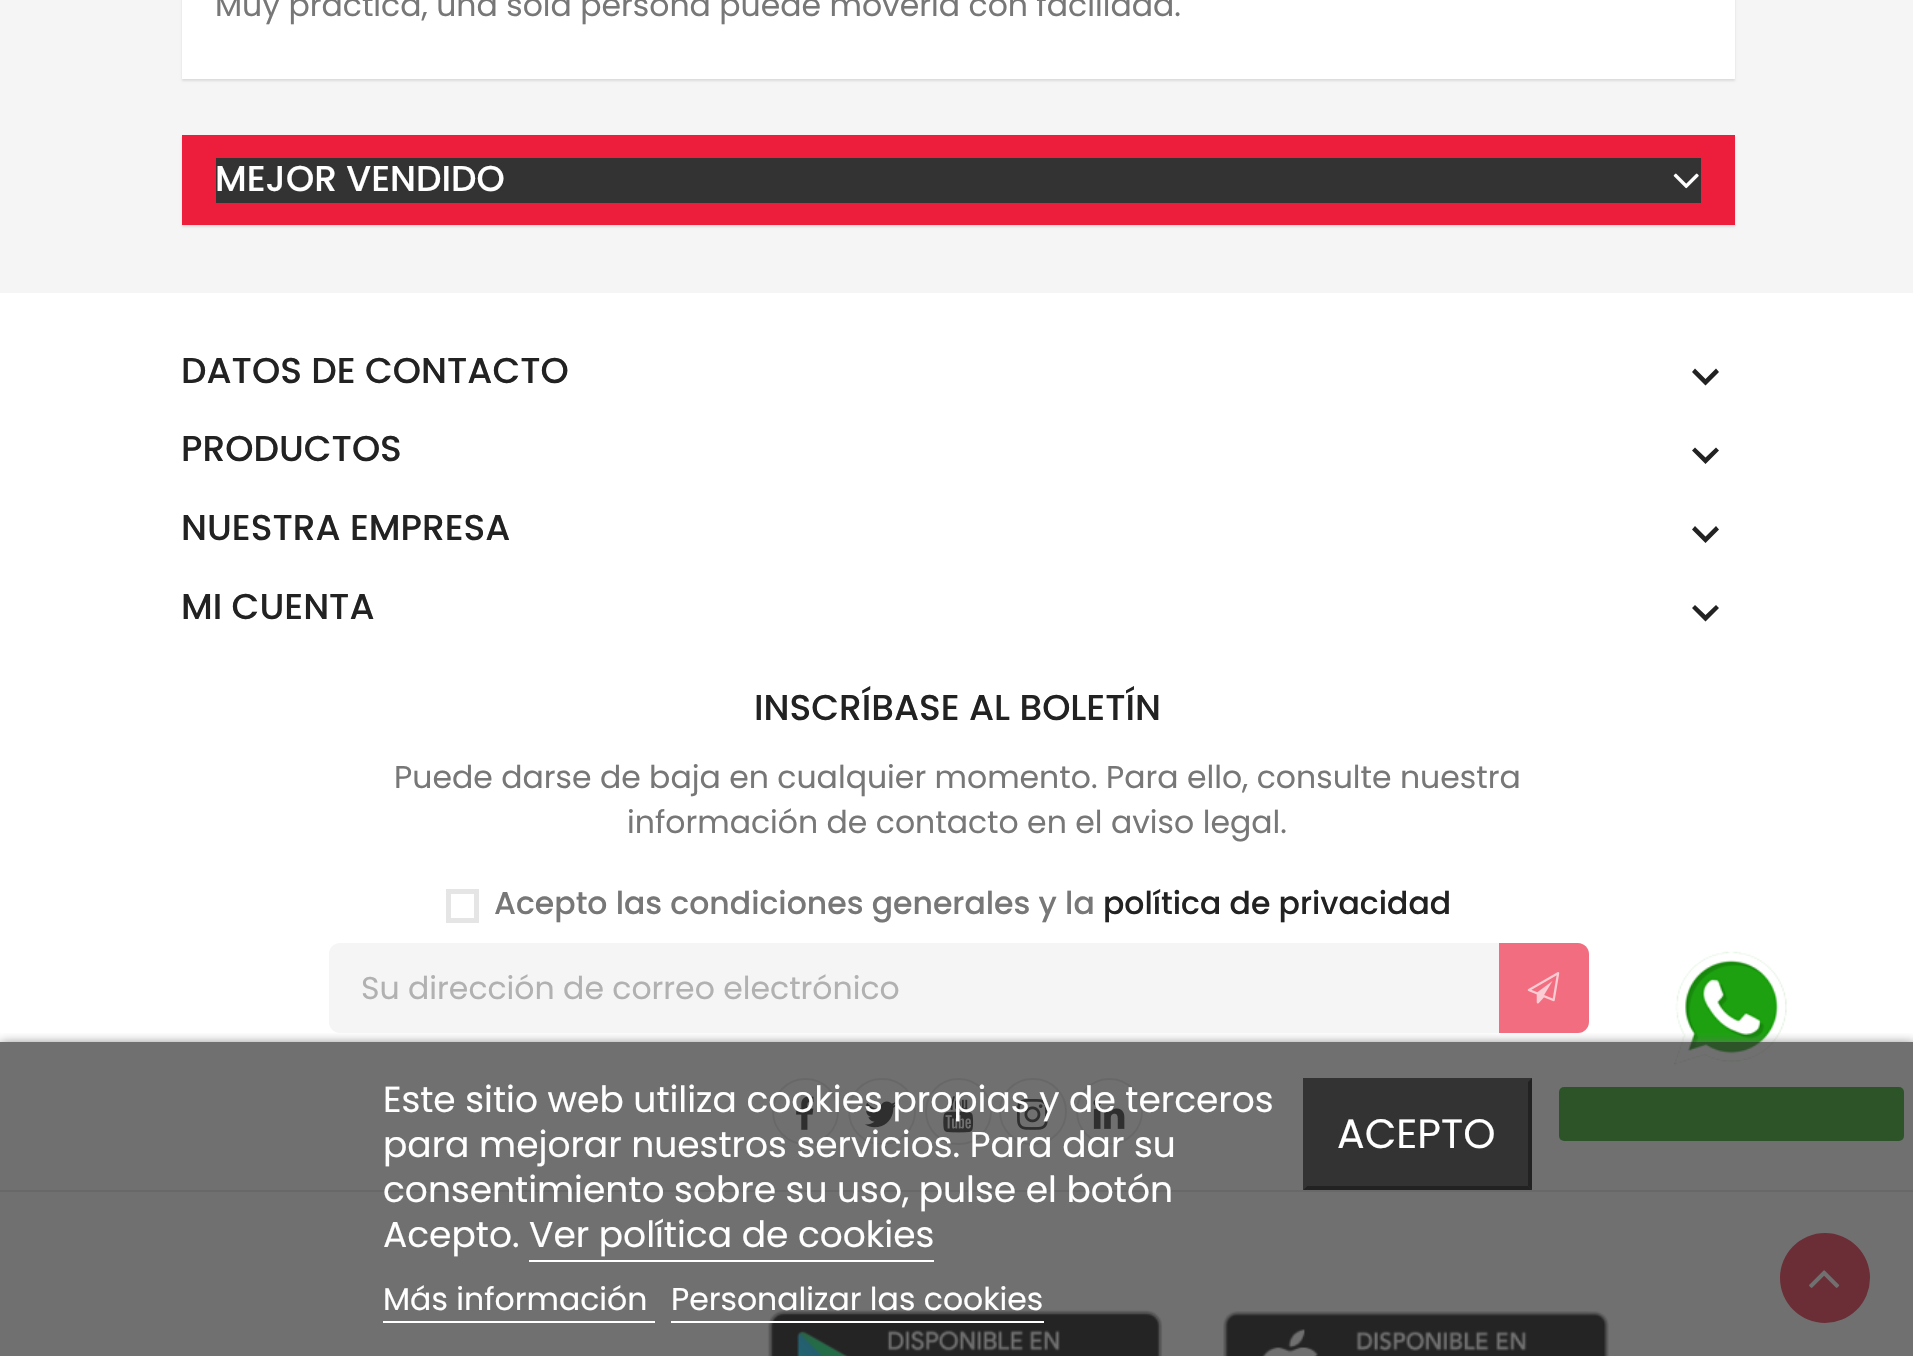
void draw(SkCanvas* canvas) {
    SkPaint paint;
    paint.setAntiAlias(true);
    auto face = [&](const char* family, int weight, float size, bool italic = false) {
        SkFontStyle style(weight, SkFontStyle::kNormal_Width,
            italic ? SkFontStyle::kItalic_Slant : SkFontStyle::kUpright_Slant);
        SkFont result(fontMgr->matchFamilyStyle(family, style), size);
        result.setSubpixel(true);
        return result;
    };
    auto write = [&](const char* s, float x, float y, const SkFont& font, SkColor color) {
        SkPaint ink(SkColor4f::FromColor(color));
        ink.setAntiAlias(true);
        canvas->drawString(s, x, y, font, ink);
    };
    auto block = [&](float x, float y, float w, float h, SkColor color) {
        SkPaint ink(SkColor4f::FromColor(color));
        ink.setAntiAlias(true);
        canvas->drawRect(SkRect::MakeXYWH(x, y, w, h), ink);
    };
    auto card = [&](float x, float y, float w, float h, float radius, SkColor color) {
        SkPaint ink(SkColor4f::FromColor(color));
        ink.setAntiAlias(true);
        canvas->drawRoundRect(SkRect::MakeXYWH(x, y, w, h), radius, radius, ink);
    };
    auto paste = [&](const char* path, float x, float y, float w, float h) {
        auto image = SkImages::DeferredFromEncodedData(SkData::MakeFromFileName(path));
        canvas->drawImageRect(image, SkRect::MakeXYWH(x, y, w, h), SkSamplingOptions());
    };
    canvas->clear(SkColorSetRGB(245, 245, 245));
    paint.setColor(SkColorSetARGB(26, 0, 0, 0));
    paint.setMaskFilter(SkMaskFilter::MakeBlur(kNormal_SkBlurStyle, 1));
    canvas->drawRect(SkRect::MakeXYWH(182, -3, 1553, 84), paint);
    paint.setMaskFilter(nullptr);
    block(182, 0, 1553, 79, SK_ColorWHITE);
    auto kFont1 = face("Poppins", 400, 31.5f);
    write("Muy práctica, una sola persona puede moverla con facilidad.", 215, 16, kFont1, SkColorSetRGB(119, 119, 119));
    paint.setMaskFilter(SkMaskFilter::MakeBlur(kNormal_SkBlurStyle, 1));
    canvas->drawRect(SkRect::MakeXYWH(182, 137, 1553, 90), paint);
    paint.setMaskFilter(nullptr);
    block(182, 135, 1553, 90, SkColorSetRGB(237, 30, 60));
    block(216, 158, 1485, 45, SkColorSetRGB(51, 51, 51));
    auto kFont2 = face("Poppins", 500, 36);
    write("MEJOR VENDIDO", 215, 191, kFont2, SK_ColorWHITE);
    paste("pic1.png", 1673, 173, 26, 16);
    block(0, 293, 1913, 1063, SK_ColorWHITE);
    write("DATOS DE CONTACTO", 181, 383, kFont2, SkColorSetRGB(34, 34, 34));
    paint.setColor(SkColorSetRGB(34, 34, 34));
    canvas->drawPath(SkPathBuilder().moveTo(1695, 368.5f).lineTo(1705.5f, 379).lineTo(1716, 368.5f).lineTo(1719, 372).lineTo(1705.5f, 385.5f).lineTo(1692, 372).close().detach(), paint);
    write("PRODUCTOS", 181, 461, kFont2, SkColorSetRGB(34, 34, 34));
    canvas->drawPath(SkPathBuilder().moveTo(1695, 447.5f).lineTo(1705.5f, 457.5f).lineTo(1716, 447.5f).lineTo(1719, 450.5f).lineTo(1705.5f, 464).lineTo(1692, 450.5f).close().detach(), paint);
    write("NUESTRA EMPRESA", 181, 540, kFont2, SkColorSetRGB(34, 34, 34));
    canvas->drawPath(SkPathBuilder().moveTo(1695, 526).lineTo(1705.5f, 536.5f).lineTo(1716, 526).lineTo(1719, 529.5f).lineTo(1705.5f, 543).lineTo(1692, 529.5f).close().detach(), paint);
    write("MI CUENTA", 181, 619, kFont2, SkColorSetRGB(34, 34, 34));
    canvas->drawPath(SkPathBuilder().moveTo(1695, 605).lineTo(1705.5f, 615).lineTo(1716, 605).lineTo(1719, 608).lineTo(1705.5f, 621.5f).lineTo(1692, 608).close().detach(), paint);
    write("INSCRÍBASE AL BOLETÍN", 754, 720, kFont2, SkColorSetRGB(34, 34, 34));
    write("Puede darse de baja en cualquier momento. Para ello, consulte nuestra", 394, 788, kFont1, SkColorSetRGB(119, 119, 119));
    write("información de contacto en el aviso legal.", 627, 833, kFont1, SkColorSetRGB(119, 119, 119));
    paint.setStyle(SkPaint::kStroke_Style);
    paint.setStrokeWidth(5);
    paint.setColor(SkColorSetRGB(229, 229, 229));
    canvas->drawRect(SkRect::MakeXYWH(448.5f, 891.5f, 28, 29), paint);
    auto kFont3 = face("Poppins", 500, 31.5f);
    write("Acepto las condiciones generales y la", 494, 914, kFont3, SkColorSetRGB(119, 119, 119));
    write("política de privacidad", 1103, 914, kFont3, SkColorSetRGB(34, 34, 34));
    paint.setStyle(SkPaint::kFill_Style);
    paint.setColor(SkColorSetRGB(245, 245, 245));
    canvas->drawPath(SkPathBuilder().moveTo(340, 943).lineTo(1499, 943).lineTo(1499, 1033).lineTo(340, 1033).cubicTo(334, 1033, 329, 1028, 329, 1022).lineTo(329, 954).cubicTo(329, 948, 334, 943, 340, 943).close().detach(), paint);
    write("Su dirección de correo electrónico", 361, 999, kFont1, SkColorSetRGB(177, 177, 177));
    paint.setColor(SkColorSetRGB(243, 109, 128));
    canvas->drawPath(SkPathBuilder().moveTo(1499, 943).lineTo(1578, 943).cubicTo(1584, 943, 1589, 948, 1589, 954).lineTo(1589, 1022).cubicTo(1589, 1028, 1584, 1033, 1578, 1033).lineTo(1499, 1033).close().detach(), paint);
    paste("pic2.png", 1527, 972, 33, 32);
    paint.setStyle(SkPaint::kStroke_Style);
    paint.setStrokeWidth(2);
    paint.setColor(SkColorSetRGB(229, 229, 229));
    canvas->drawCircle(805.5f, 1111.5f, 32.5f, paint);
    paste("pic3.png", 796, 1096, 18, 34);
    canvas->drawRoundRect(SkRect::MakeXYWH(849, 1079, 66, 65), 32.5f, 32.5f, paint);
    paste("pic4.png", 865, 1101, 32, 27);
    canvas->drawCircle(958.5f, 1111.5f, 32.5f, paint);
    paste("pic5.png", 943, 1096, 31, 37);
    canvas->drawRoundRect(SkRect::MakeXYWH(1000, 1079, 66, 65), 32.5f, 32.5f, paint);
    paste("pic6.png", 1017, 1099, 31, 31);
    canvas->drawCircle(1109.5f, 1111.5f, 32.5f, paint);
    paste("pic7.png", 1093, 1099, 32, 30);
    paste("pic8.png", 1674, 951, 113, 114);
    card(1559, 1087, 345, 54, 5, SkColorSetRGB(29, 161, 16));
    block(0, 1190, 1913, 2, SkColorSetRGB(229, 229, 229));
    paste("pic9.png", 767, 1309, 396, 47);
    paste("pic10.png", 1223, 1311, 386, 45);
    paint.setStyle(SkPaint::kFill_Style);
    paint.setColor(SkColorSetRGB(237, 30, 60));
    canvas->drawCircle(1825, 1278, 45, paint);
    paste("pic11.png", 1809, 1270, 31, 18);
    canvas->save();
    canvas->clipRect(SkRect::MakeXYWH(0, 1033, 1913, 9));
    paint.setColor(SkColorSetRGB(112, 112, 112));
    paint.setMaskFilter(SkMaskFilter::MakeBlur(kNormal_SkBlurStyle, 5.5f));
    canvas->drawRect(SkRect::MakeXYWH(0, 1044, 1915, 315), paint);
    paint.setMaskFilter(nullptr);
    canvas->restore();
    block(0, 1042, 1913, 314, SkColorSetARGB(179, 51, 51, 51));
    auto kFont4 = face("Poppins", 400, 36);
    write("Este sitio web utiliza cookies propias y de terceros", 383, 1112, kFont4, SK_ColorWHITE);
    write("para mejorar nuestros servicios. Para dar su", 383, 1157, kFont4, SK_ColorWHITE);
    write("consentimiento sobre su uso, pulse el botón", 383, 1202, kFont4, SK_ColorWHITE);
    write("Acepto. Ver política de cookies", 383, 1247, kFont4, SK_ColorWHITE);
    block(529, 1260, 405, 2, SK_ColorWHITE);
    write("Más información", 383, 1310, kFont1, SK_ColorWHITE);
    block(383, 1321, 272, 2, SK_ColorWHITE);
    write("Personalizar las cookies", 671, 1310, kFont1, SK_ColorWHITE);
    block(671, 1321, 373, 2, SK_ColorWHITE);
    block(1303, 1078, 229, 112, SkColorSetRGB(51, 51, 51));
    paint.setColor(SkColorSetRGB(34, 34, 34));
    canvas->drawPath(SkPathBuilder().moveTo(1532, 1078).lineTo(1532, 1190).lineTo(1528, 1186).lineTo(1528, 1082).close().detach(), paint);
    canvas->drawPath(SkPathBuilder().moveTo(1532, 1190).lineTo(1303, 1190).lineTo(1307, 1186).lineTo(1528, 1186).close().detach(), paint);
    paint.setColor(SkColorSetRGB(51, 51, 51));
    canvas->drawPath(SkPathBuilder().moveTo(1303, 1190).lineTo(1303, 1078).lineTo(1307, 1082).lineTo(1307, 1186).close().detach(), paint);
    auto kFont5 = face("Poppins", 400, 41);
    write("ACEPTO", 1337, 1148, kFont5, SK_ColorWHITE);
}
